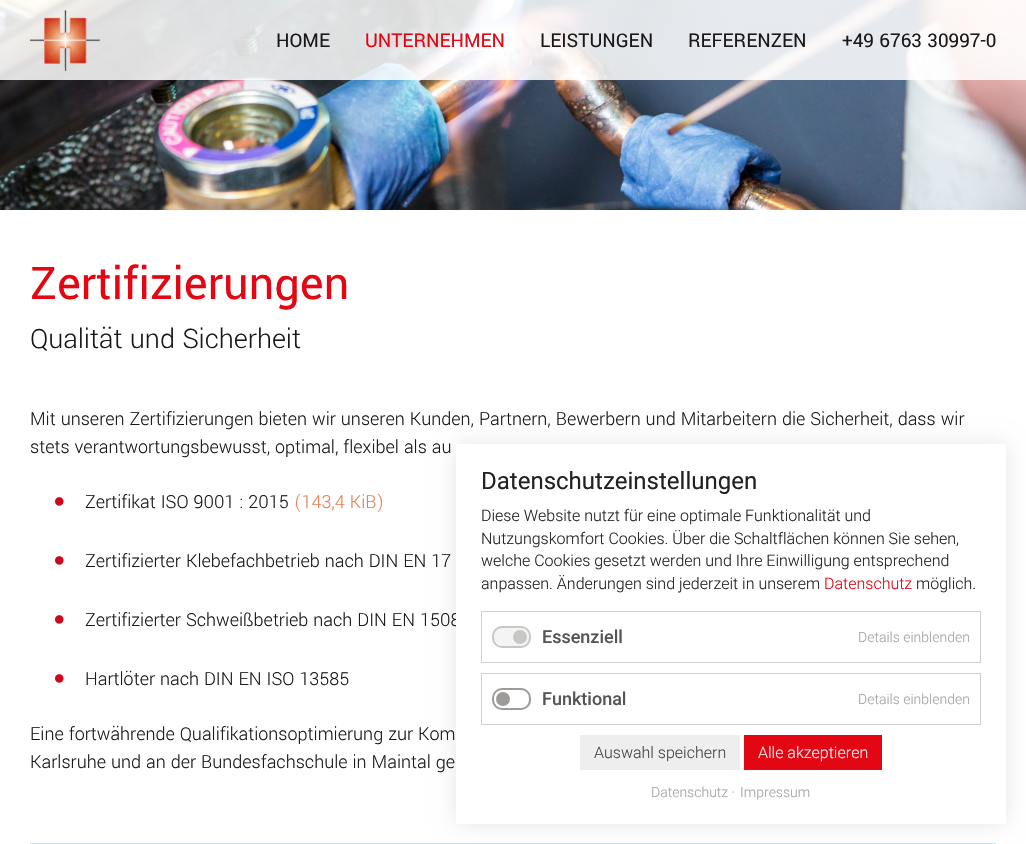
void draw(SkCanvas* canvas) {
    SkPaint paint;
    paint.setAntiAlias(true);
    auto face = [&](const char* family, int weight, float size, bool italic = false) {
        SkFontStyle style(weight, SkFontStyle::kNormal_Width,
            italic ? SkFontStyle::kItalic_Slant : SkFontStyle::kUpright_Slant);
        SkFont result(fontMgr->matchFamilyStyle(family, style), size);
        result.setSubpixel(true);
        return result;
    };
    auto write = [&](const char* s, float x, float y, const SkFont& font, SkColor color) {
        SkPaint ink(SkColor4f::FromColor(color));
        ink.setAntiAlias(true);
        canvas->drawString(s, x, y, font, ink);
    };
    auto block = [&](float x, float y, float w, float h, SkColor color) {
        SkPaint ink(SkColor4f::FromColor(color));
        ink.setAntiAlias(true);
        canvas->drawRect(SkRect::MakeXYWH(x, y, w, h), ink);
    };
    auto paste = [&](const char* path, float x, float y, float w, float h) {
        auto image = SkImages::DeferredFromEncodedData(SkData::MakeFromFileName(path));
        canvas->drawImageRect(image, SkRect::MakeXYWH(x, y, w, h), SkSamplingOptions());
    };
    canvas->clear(SK_ColorWHITE);
    paste("pic1.png", 0, 0, 1026, 210);
    block(0, 0, 1026, 80, SkColorSetARGB(217, 255, 255, 255));
    paste("pic2.png", 30, 10, 70, 61);
    auto kFont1 = face("Yantramanav", 400, 21);
    write("HOME", 276, 47, kFont1, SkColorSetRGB(26, 23, 27));
    write("UNTERNEHMEN", 365, 47, kFont1, SkColorSetRGB(227, 6, 19));
    write("LEISTUNGEN", 540, 47, kFont1, SkColorSetRGB(26, 23, 27));
    write("REFERENZEN", 688, 47, kFont1, SkColorSetRGB(26, 23, 27));
    write("+49 6763 30997-0", 842, 47, kFont1, SkColorSetRGB(26, 23, 27));
    auto kFont2 = face("Yantramanav", 400, 50);
    write("Zertifizierungen", 30, 299, kFont2, SkColorSetRGB(227, 6, 19));
    auto kFont3 = face("Yantramanav", 300, 30);
    write("Qualität und Sicherheit", 30, 348, kFont3, SkColorSetRGB(26, 23, 27));
    auto kFont4 = face("Yantramanav", 300, 20);
    write("Mit unseren Zertifizierungen bieten wir unseren Kunden, Partnern, Bewerbern und Mitarbeitern die Sicherheit, dass wir", 30, 425, kFont4, SkColorSetRGB(26, 23, 27));
    write("stets verantwortungsbewusst, optimal, flexibel als au", 30, 453, kFont4, SkColorSetRGB(26, 23, 27));
    paste("pic3.png", 55, 497, 9, 9);
    write("Zertifikat ISO 9001 : 2015", 85, 508, kFont4, SkColorSetRGB(26, 23, 27));
    write("(143,4 KiB)", 294, 508, kFont4, SkColorSetRGB(228, 129, 87));
    paste("pic3.png", 55, 556, 9, 9);
    write("Zertifizierter Klebefachbetrieb nach DIN EN 17", 85, 567, kFont4, SkColorSetRGB(26, 23, 27));
    paste("pic3.png", 55, 615, 9, 9);
    write("Zertifizierter Schweißbetrieb nach DIN EN 1508", 85, 626, kFont4, SkColorSetRGB(26, 23, 27));
    paste("pic3.png", 55, 674, 9, 9);
    write("Hartlöter nach DIN EN ISO 13585", 85, 685, kFont4, SkColorSetRGB(26, 23, 27));
    write("Eine fortwährende Qualifikationsoptimierung zur Kom", 30, 740, kFont4, SkColorSetRGB(26, 23, 27));
    write("Karlsruhe und an der Bundesfachschule in Maintal ge", 30, 768, kFont4, SkColorSetRGB(26, 23, 27));
    block(30, 843, 966, 1, SkColorSetRGB(212, 227, 235));
    paint.setColor(SkColorSetARGB(26, 0, 0, 0));
    paint.setMaskFilter(SkMaskFilter::MakeBlur(kNormal_SkBlurStyle, 10));
    canvas->drawRect(SkRect::MakeXYWH(456, 444, 550, 380), paint);
    paint.setMaskFilter(nullptr);
    block(456, 444, 550, 380, SK_ColorWHITE);
    auto kFont5 = face("Roboto", 400, 24);
    write("Datenschutzeinstellungen", 481, 489, kFont5, SkColorSetRGB(34, 34, 34));
    auto kFont6 = face("Roboto", 300, 16);
    write("Diese Website nutzt für eine optimale Funktionalität und", 481, 521, kFont6, SkColorSetRGB(34, 34, 34));
    write("Nutzungskomfort Cookies. Über die Schaltflächen können Sie sehen,", 481, 544, kFont6, SkColorSetRGB(34, 34, 34));
    write("welche Cookies gesetzt werden und Ihre Einwilligung entsprechend", 481, 566, kFont6, SkColorSetRGB(34, 34, 34));
    write("anpassen. Änderungen sind jederzeit in unserem", 481, 589, kFont6, SkColorSetRGB(34, 34, 34));
    write("Datenschutz", 824, 589, kFont6, SkColorSetRGB(227, 6, 19));
    write("möglich.", 916, 589, kFont6, SkColorSetRGB(34, 34, 34));
    paint.setStyle(SkPaint::kStroke_Style);
    paint.setStrokeWidth(1);
    paint.setColor(SkColorSetRGB(208, 208, 208));
    canvas->drawRect(SkRect::MakeXYWH(481.5f, 611.5f, 499, 51), paint);
    paint.setStyle(SkPaint::kFill_Style);
    paint.setColor(SkColorSetRGB(244, 244, 244));
    canvas->drawRoundRect(SkRect::MakeXYWH(493, 627, 37, 20), 9, 9, paint);
    paint.setStyle(SkPaint::kStroke_Style);
    paint.setStrokeWidth(2);
    paint.setColor(SkColorSetRGB(200, 199, 197));
    canvas->drawRoundRect(SkRect::MakeXYWH(493, 627, 37, 20), 9, 9, paint);
    auto kFont7 = face("Roboto", 500, 18);
    write("Essenziell", 542, 643, kFont7, SkColorSetRGB(85, 85, 85));
    paint.setStyle(SkPaint::kFill_Style);
    canvas->drawCircle(520, 637, 7, paint);
    auto kFont8 = face("Roboto", 300, 14);
    write("Details einblenden", 858, 642, kFont8, SkColorSetRGB(162, 162, 162));
    paint.setStyle(SkPaint::kStroke_Style);
    paint.setStrokeWidth(1);
    paint.setColor(SkColorSetRGB(208, 208, 208));
    canvas->drawRect(SkRect::MakeXYWH(481.5f, 673.5f, 499, 51), paint);
    paint.setStrokeWidth(2);
    paint.setColor(SkColorSetRGB(156, 155, 153));
    canvas->drawRoundRect(SkRect::MakeXYWH(493, 689, 37, 20), 9, 9, paint);
    write("Funktional", 542, 705, kFont7, SkColorSetRGB(85, 85, 85));
    paint.setStyle(SkPaint::kFill_Style);
    canvas->drawCircle(503, 699, 7, paint);
    write("Details einblenden", 858, 704, kFont8, SkColorSetRGB(162, 162, 162));
    block(580, 735, 160, 35, SkColorSetRGB(238, 238, 238));
    write("Auswahl speichern", 594, 758, kFont6, SkColorSetRGB(68, 68, 68));
    block(744, 735, 138, 35, SkColorSetRGB(227, 6, 19));
    write("Alle akzeptieren", 758, 758, kFont6, SkColorSetRGB(238, 238, 238));
    write("Datenschutz ·", 651, 797, kFont8, SkColorSetRGB(162, 162, 162));
    write("Impressum", 740, 797, kFont8, SkColorSetRGB(162, 162, 162));
}
